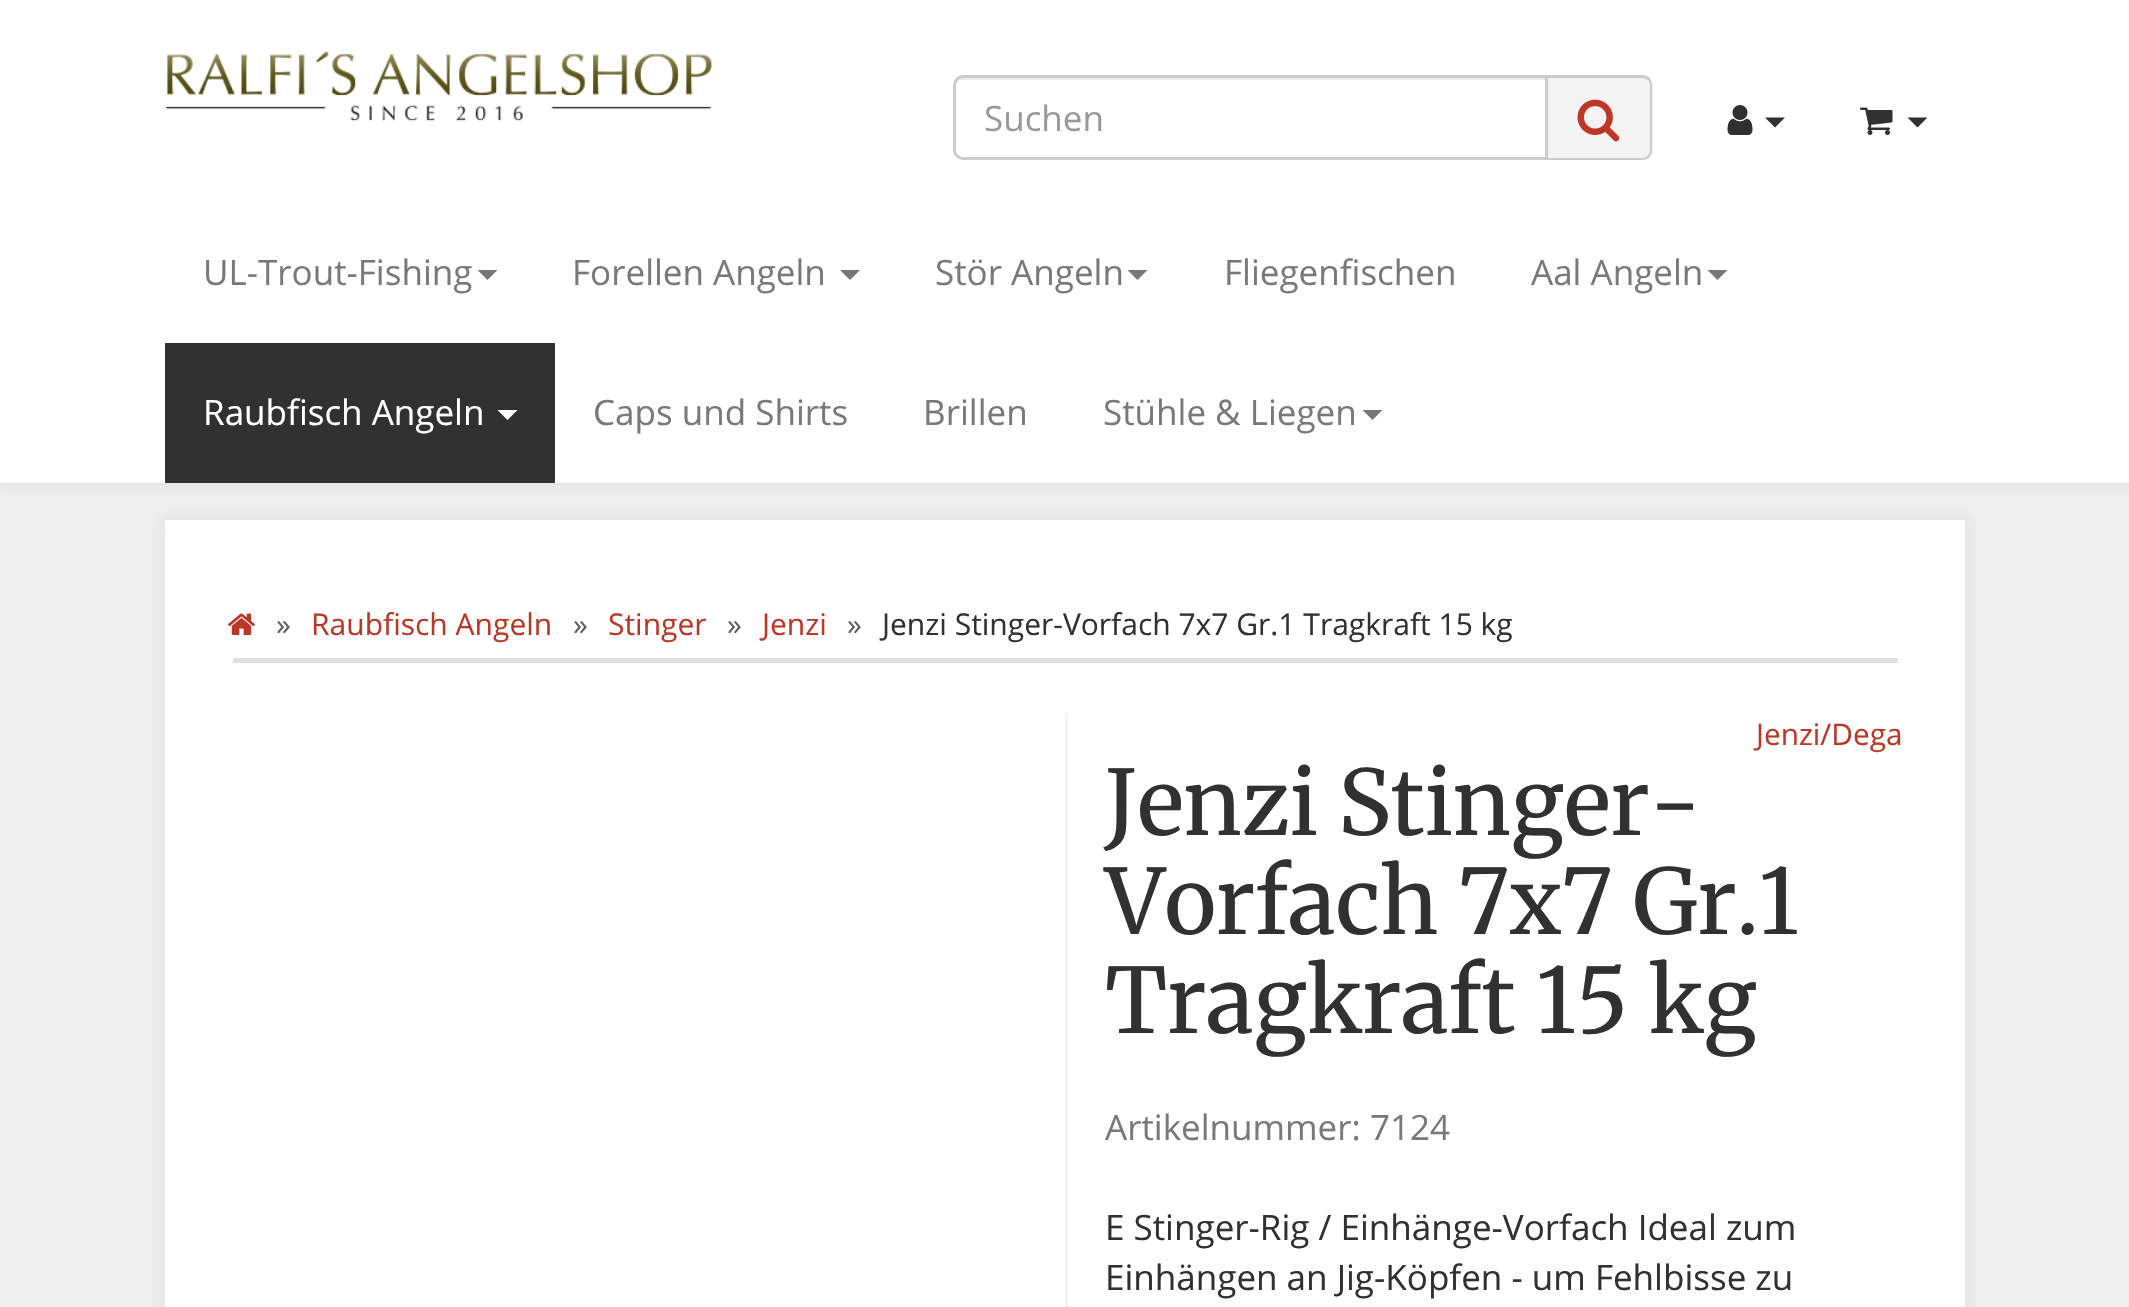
void draw(SkCanvas* canvas) {
    SkPaint paint;
    paint.setAntiAlias(true);
    auto face = [&](const char* family, int weight, float size, bool italic = false) {
        SkFontStyle style(weight, SkFontStyle::kNormal_Width,
            italic ? SkFontStyle::kItalic_Slant : SkFontStyle::kUpright_Slant);
        SkFont result(fontMgr->matchFamilyStyle(family, style), size);
        result.setSubpixel(true);
        return result;
    };
    auto write = [&](const char* s, float x, float y, const SkFont& font, SkColor color) {
        SkPaint ink(SkColor4f::FromColor(color));
        ink.setAntiAlias(true);
        canvas->drawString(s, x, y, font, ink);
    };
    auto block = [&](float x, float y, float w, float h, SkColor color) {
        SkPaint ink(SkColor4f::FromColor(color));
        ink.setAntiAlias(true);
        canvas->drawRect(SkRect::MakeXYWH(x, y, w, h), ink);
    };
    auto paste = [&](const char* path, float x, float y, float w, float h) {
        auto image = SkImages::DeferredFromEncodedData(SkData::MakeFromFileName(path));
        canvas->drawImageRect(image, SkRect::MakeXYWH(x, y, w, h), SkSamplingOptions());
    };
    canvas->clear(SkColorSetRGB(238, 238, 238));
    paint.setColor(SkColorSetARGB(26, 106, 106, 106));
    paint.setMaskFilter(SkMaskFilter::MakeBlur(kNormal_SkBlurStyle, 6));
    canvas->drawRect(SkRect::MakeXYWH(-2, -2, 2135, 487), paint);
    paint.setMaskFilter(nullptr);
    block(0, 0, 2129, 483, SK_ColorWHITE);
    paste("pic1.png", 166, 51, 546, 70);
    paint.setColor(SkColorSetRGB(236, 236, 236));
    canvas->drawPath(SkPathBuilder().moveTo(962, 80).lineTo(1545, 80).lineTo(1545, 78).lineTo(963, 78).cubicTo(957, 78, 955, 83, 955, 88).cubicTo(955, 83, 958, 80, 962, 80).close().detach(), paint);
    paint.setStyle(SkPaint::kStroke_Style);
    paint.setStrokeWidth(3);
    paint.setColor(SkColorSetRGB(204, 204, 204));
    canvas->drawPath(SkPathBuilder().moveTo(963, 76.5f).lineTo(1546.5f, 76.5f).lineTo(1546.5f, 158.5f).lineTo(963, 158.5f).cubicTo(958.5f, 158.5f, 954.5f, 154.5f, 954.5f, 150).lineTo(954.5f, 85).cubicTo(954.5f, 80.5f, 958.5f, 76.5f, 963, 76.5f).close().detach(), paint);
    auto kFont1 = face("Open Sans", 400, 35);
    write("Suchen", 984, 131, kFont1, SkColorSetRGB(153, 153, 153));
    paint.setStyle(SkPaint::kFill_Style);
    paint.setColor(SkColorSetRGB(243, 243, 243));
    canvas->drawPath(SkPathBuilder().moveTo(1548, 75).lineTo(1643, 75).cubicTo(1648.5f, 75, 1653, 79.5f, 1653, 85).lineTo(1653, 150).cubicTo(1653, 155.5f, 1648.5f, 160, 1643, 160).lineTo(1548, 160).close().detach(), paint);
    paint.setColor(SkColorSetRGB(204, 204, 204));
    canvas->drawPath(SkPathBuilder(SkPathFillType::kEvenOdd).moveTo(1548, 75).lineTo(1642, 75).cubicTo(1648, 75, 1652, 79, 1652, 85).lineTo(1652, 150).cubicTo(1652, 156, 1648, 160, 1642, 160).lineTo(1548, 160).close().moveTo(1548, 78).lineTo(1642, 78).cubicTo(1647, 78, 1650, 81, 1650, 85).lineTo(1650, 150).cubicTo(1650, 154, 1647, 158, 1642, 158).lineTo(1548, 158).close().detach(), paint);
    paste("pic2.png", 1577, 99, 43, 43);
    paste("pic3.png", 1727, 105, 26, 30);
    paint.setColor(SkColorSetRGB(49, 49, 49));
    canvas->drawPath(SkPathBuilder().moveTo(1765, 117.5f).lineTo(1785, 117.5f).lineTo(1775, 127.5f).close().detach(), paint);
    paste("pic4.png", 1860, 107, 33, 28);
    canvas->drawPath(SkPathBuilder().moveTo(1907.5f, 117.5f).lineTo(1927.5f, 117.5f).lineTo(1917.5f, 127.5f).close().detach(), paint);
    write("UL-Trout-Fishing", 203, 285, kFont1, SkColorSetRGB(121, 121, 121));
    paint.setColor(SkColorSetRGB(119, 119, 119));
    canvas->drawPath(SkPathBuilder().moveTo(477.5f, 270).lineTo(497.5f, 270).lineTo(487.5f, 280).close().detach(), paint);
    write("Forellen Angeln", 572, 285, kFont1, SkColorSetRGB(121, 121, 121));
    canvas->drawPath(SkPathBuilder().moveTo(840, 270).lineTo(860, 270).lineTo(850, 280).close().detach(), paint);
    write("Stör Angeln", 935, 285, kFont1, SkColorSetRGB(121, 121, 121));
    canvas->drawPath(SkPathBuilder().moveTo(1127.5f, 270).lineTo(1147.5f, 270).lineTo(1137.5f, 280).close().detach(), paint);
    write("Fliegenfischen", 1224, 285, kFont1, SkColorSetRGB(121, 121, 121));
    write("Aal Angeln", 1531, 285, kFont1, SkColorSetRGB(121, 121, 121));
    canvas->drawPath(SkPathBuilder().moveTo(1707.5f, 270).lineTo(1727.5f, 270).lineTo(1717.5f, 280).close().detach(), paint);
    block(165, 343, 390, 140, SkColorSetRGB(49, 49, 49));
    write("Raubfisch Angeln", 203, 425, kFont1, SK_ColorWHITE);
    paint.setColor(SK_ColorWHITE);
    canvas->drawPath(SkPathBuilder().moveTo(497.5f, 410).lineTo(517.5f, 410).lineTo(507.5f, 420).close().detach(), paint);
    write("Caps und Shirts", 593, 425, kFont1, SkColorSetRGB(121, 121, 121));
    write("Brillen", 923, 425, kFont1, SkColorSetRGB(121, 121, 121));
    write("Stühle & Liegen", 1103, 425, kFont1, SkColorSetRGB(121, 121, 121));
    paint.setColor(SkColorSetRGB(119, 119, 119));
    canvas->drawPath(SkPathBuilder().moveTo(1362.5f, 410).lineTo(1382.5f, 410).lineTo(1372.5f, 420).close().detach(), paint);
    paint.setColor(SkColorSetARGB(26, 106, 106, 106));
    paint.setMaskFilter(SkMaskFilter::MakeBlur(kNormal_SkBlurStyle, 6));
    canvas->drawRect(SkRect::MakeXYWH(163, 518, 1805, 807), paint);
    paint.setMaskFilter(nullptr);
    block(165, 520, 1800, 787, SK_ColorWHITE);
    block(233, 658, 1665, 5, SkColorSetRGB(223, 223, 223));
    paste("pic5.png", 228, 613, 27, 22);
    auto kFont2 = face("Open Sans", 400, 30);
    write("»", 276, 635, kFont2, SkColorSetRGB(96, 96, 96));
    write("Raubfisch Angeln", 311, 635, kFont2, SkColorSetRGB(188, 55, 38));
    write("»", 573, 635, kFont2, SkColorSetRGB(96, 96, 96));
    write("Stinger", 608, 635, kFont2, SkColorSetRGB(188, 55, 38));
    write("»", 727, 635, kFont2, SkColorSetRGB(96, 96, 96));
    write("Jenzi", 762, 635, kFont2, SkColorSetRGB(188, 55, 38));
    write("»", 847, 635, kFont2, SkColorSetRGB(96, 96, 96));
    write("Jenzi Stinger-Vorfach 7x7 Gr.1 Tragkraft 15 kg", 882, 635, kFont2, SkColorSetRGB(49, 49, 49));
    block(1065, 713, 3, 594, SkColorSetRGB(243, 243, 243));
    auto kFont3 = face("Open Sans", 400, 29.75f);
    write("Jenzi/Dega", 1756, 745, kFont3, SkColorSetRGB(188, 55, 38));
    auto kFont4 = face("Merriweather", 400, 90);
    write("Jenzi Stinger-", 1105, 835, kFont4, SkColorSetRGB(49, 49, 49));
    write("Vorfach 7x7 Gr.1", 1105, 934, kFont4, SkColorSetRGB(49, 49, 49));
    write("Tragkraft 15 kg", 1105, 1033, kFont4, SkColorSetRGB(49, 49, 49));
    write("Artikelnummer: 7124", 1105, 1140, kFont1, SkColorSetRGB(121, 121, 121));
    write("E Stinger-Rig / Einhänge-Vorfach Ideal zum", 1105, 1240, kFont1, SkColorSetRGB(49, 49, 49));
    write("Einhängen an Jig-Köpfen - um Fehlbisse zu", 1105, 1290, kFont1, SkColorSetRGB(49, 49, 49));
}
